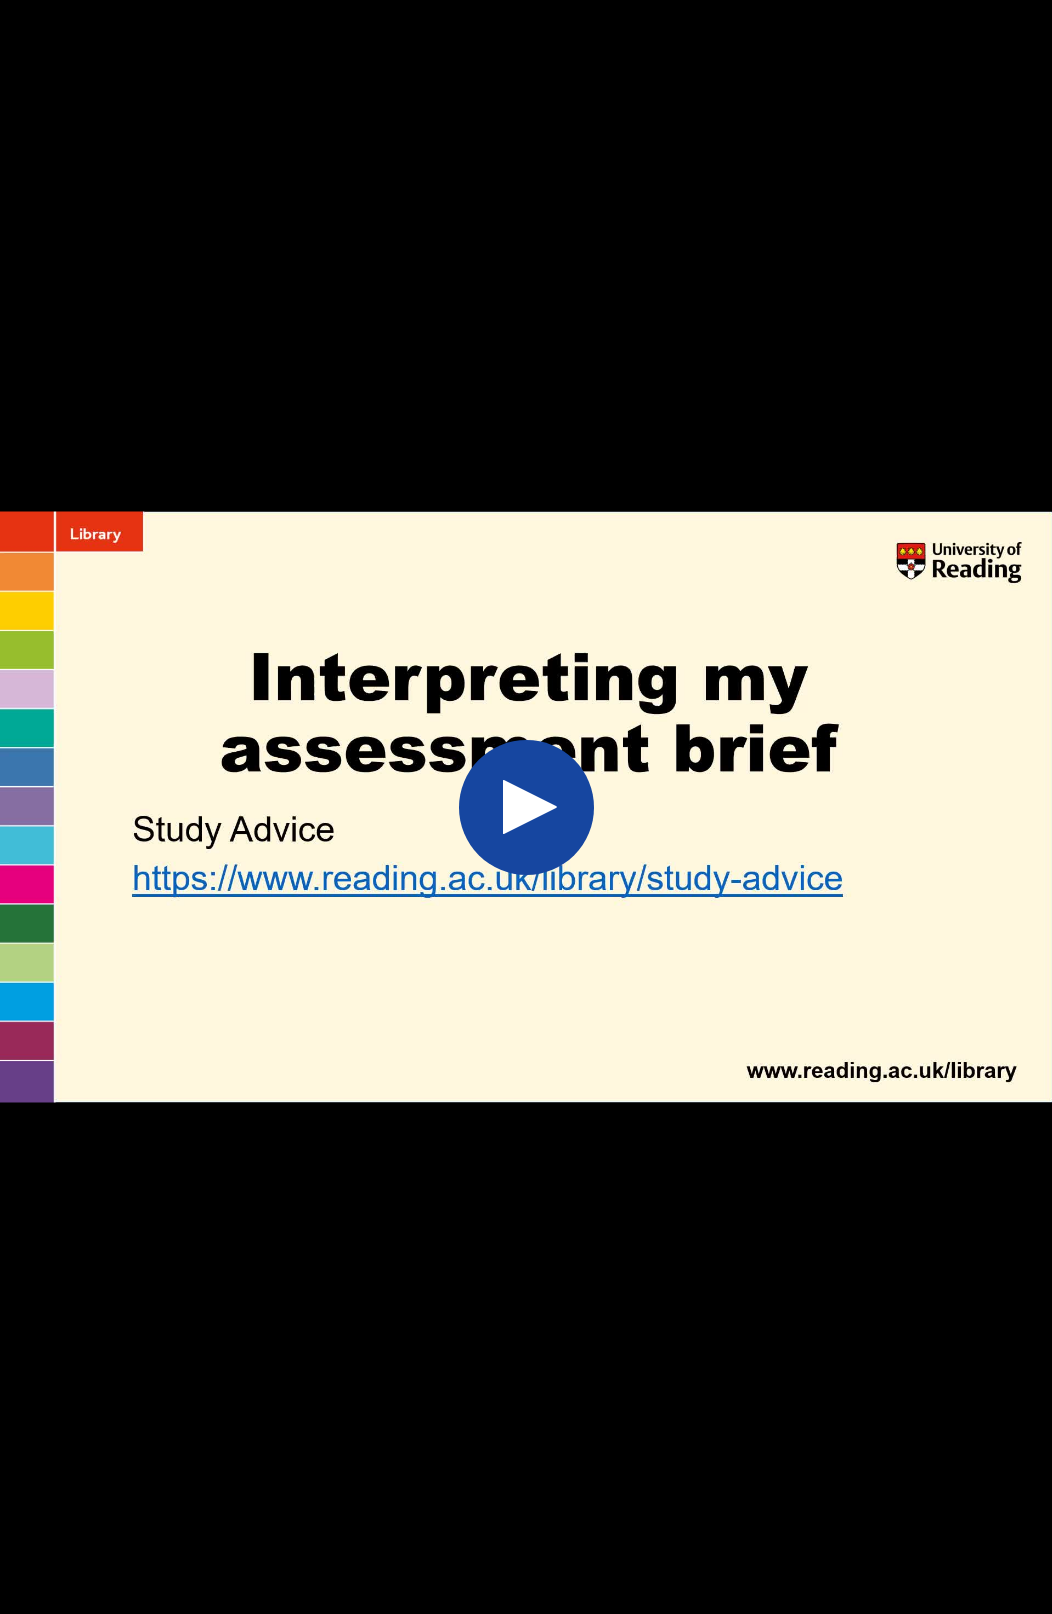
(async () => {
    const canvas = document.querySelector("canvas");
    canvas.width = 1052;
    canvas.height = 1614;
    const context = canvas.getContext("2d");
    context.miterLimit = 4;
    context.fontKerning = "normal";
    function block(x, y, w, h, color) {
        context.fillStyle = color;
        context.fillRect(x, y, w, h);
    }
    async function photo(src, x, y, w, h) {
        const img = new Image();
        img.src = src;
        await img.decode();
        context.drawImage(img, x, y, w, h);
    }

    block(0, 0, 1052, 1614, "rgb(0, 0, 0)");
    await photo("media/1.png", 0, 511, 1052, 592);
    context.fillStyle = "rgb(22, 70, 160)";
    context.beginPath();
    context.arc(526.5, 807.5, 67.5, 0, Math.PI * 2);
    context.fill();
    context.fillStyle = "rgb(255, 255, 255)";
    context.beginPath();
    context.moveTo(556, 806);
    context.lineTo(504, 780);
    context.bezierCurveTo(503, 780, 503, 780, 503, 781);
    context.lineTo(503, 833);
    context.bezierCurveTo(503, 834, 503, 834, 504, 834);
    context.lineTo(556, 808);
    context.bezierCurveTo(557, 808, 557, 806, 556, 806);
    context.closePath();
    context.fill();
})();
